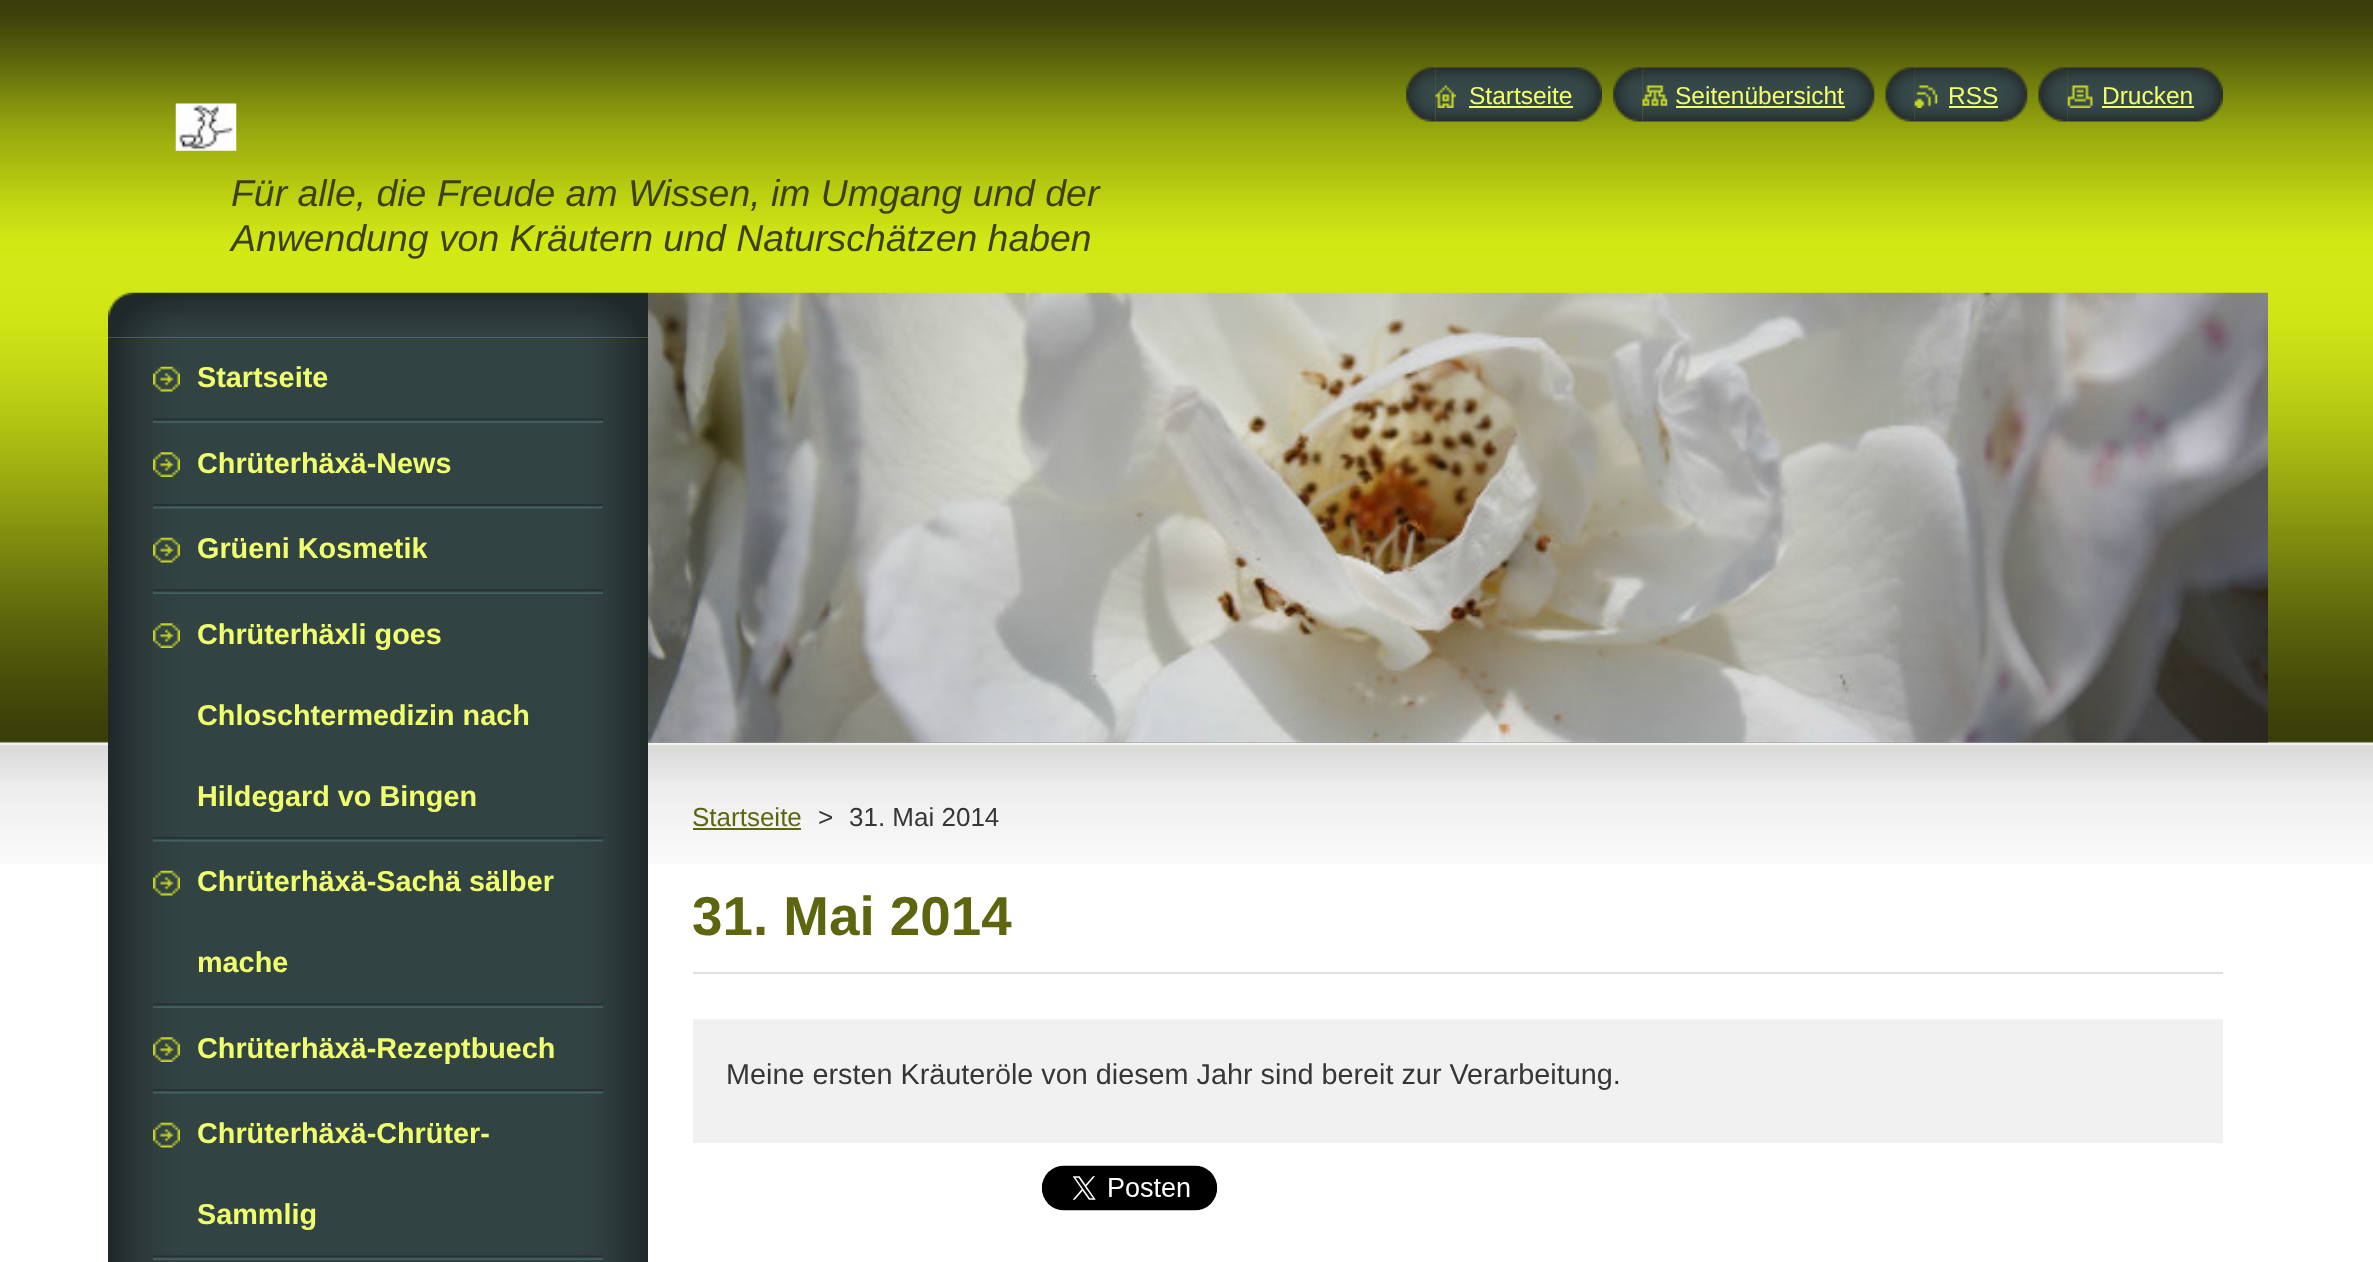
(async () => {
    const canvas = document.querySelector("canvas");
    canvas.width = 2373;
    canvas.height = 1262;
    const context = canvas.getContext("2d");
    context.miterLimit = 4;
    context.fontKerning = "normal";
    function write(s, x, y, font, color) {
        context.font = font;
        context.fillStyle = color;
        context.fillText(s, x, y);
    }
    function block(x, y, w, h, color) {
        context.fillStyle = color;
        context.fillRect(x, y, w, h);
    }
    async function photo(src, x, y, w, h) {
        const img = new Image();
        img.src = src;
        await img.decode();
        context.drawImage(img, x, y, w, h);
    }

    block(0, 0, 2373, 1262, "rgb(255, 255, 255)");
    await photo("media/1.png", 0, 0, 2373, 864);
    await photo("media/2.png", 1406, 67, 30, 55);
    await photo("media/3.png", 1435, 67, 167, 55);
    await photo("media/4.png", 1435, 85, 21, 23);
    write("Startseite", 1469, 104, "24.5px Liberation Sans", "rgb(240, 255, 109)");
    block(1469, 106, 104, 2, "rgb(240, 255, 109)");
    await photo("media/5.png", 1613, 67, 30, 55);
    await photo("media/6.png", 1642, 67, 233, 55);
    await photo("media/7.png", 1642, 85, 26, 21);
    write("Seitenübersicht", 1675, 104, "24.5px Liberation Sans", "rgb(240, 255, 109)");
    block(1676, 106, 169, 2, "rgb(240, 255, 109)");
    await photo("media/8.png", 1885, 67, 30, 55);
    await photo("media/9.png", 1914, 67, 114, 55);
    await photo("media/10.png", 1914, 85, 24, 23);
    write("RSS", 1948, 104, "24.5px Liberation Sans", "rgb(240, 255, 109)");
    block(1949, 106, 49, 2, "rgb(240, 255, 109)");
    await photo("media/11.png", 2038, 67, 30, 55);
    await photo("media/12.png", 2067, 67, 156, 55);
    await photo("media/13.png", 2067, 85, 26, 23);
    write("Drucken", 2102, 104, "24.5px Liberation Sans", "rgb(240, 255, 109)");
    block(2102, 106, 92, 2, "rgb(240, 255, 109)");
    await photo("media/14.png", 175, 103, 62, 48);
    write("Für alle, die Freude am Wissen, im Umgang und der", 231, 206, "italic 37.4px Liberation Sans", "rgb(60, 65, 12)");
    write("Anwendung von Kräutern und Naturschätzen haben", 231, 251, "italic 37.4px Liberation Sans", "rgb(60, 65, 12)");
    await photo("media/15.png", 108, 292, 540, 46);
    await photo("media/16.png", 108, 337, 540, 925);
    await photo("media/17.png", 153, 418, 450, 5);
    await photo("media/18.png", 153, 366, 27, 26);
    write("Startseite", 197, 387, "bold 28.8px Liberation Sans", "rgb(240, 255, 109)");
    await photo("media/19.png", 153, 504, 450, 5);
    await photo("media/20.png", 153, 452, 27, 25);
    write("Chrüterhäxä-News", 197, 473, "bold 28.8px Liberation Sans", "rgb(240, 255, 109)");
    await photo("media/17.png", 153, 589, 450, 5);
    await photo("media/18.png", 153, 537, 27, 26);
    write("Grüeni Kosmetik", 197, 558, "bold 28.8px Liberation Sans", "rgb(240, 255, 109)");
    await photo("media/19.png", 153, 837, 450, 5);
    await photo("media/20.png", 153, 623, 27, 25);
    write("Chrüterhäxli goes", 197, 644, "bold 28.8px Liberation Sans", "rgb(240, 255, 109)");
    write("Chloschtermedizin nach", 197, 725, "bold 28.8px Liberation Sans", "rgb(240, 255, 109)");
    write("Hildegard vo Bingen", 197, 806, "bold 28.8px Liberation Sans", "rgb(240, 255, 109)");
    await photo("media/17.png", 153, 1003, 450, 5);
    await photo("media/18.png", 153, 870, 27, 26);
    write("Chrüterhäxä-Sachä sälber", 197, 891, "bold 28.8px Liberation Sans", "rgb(240, 255, 109)");
    write("mache", 197, 972, "bold 28.8px Liberation Sans", "rgb(240, 255, 109)");
    await photo("media/19.png", 153, 1089, 450, 5);
    await photo("media/20.png", 153, 1037, 27, 25);
    write("Chrüterhäxä-Rezeptbuech", 197, 1058, "bold 28.8px Liberation Sans", "rgb(240, 255, 109)");
    await photo("media/17.png", 153, 1255, 450, 5);
    await photo("media/18.png", 153, 1122, 27, 26);
    write("Chrüterhäxä-Chrüter-", 197, 1143, "bold 28.8px Liberation Sans", "rgb(240, 255, 109)");
    write("Sammlig", 197, 1224, "bold 28.8px Liberation Sans", "rgb(240, 255, 109)");
    await photo("media/21.png", 648, 292, 1620, 451);
    write("Startseite", 692, 826, "26px Liberation Sans", "rgb(93, 101, 14)");
    block(693, 828, 108, 2, "rgb(93, 101, 14)");
    write(">", 818, 826, "26px Liberation Sans", "rgb(54, 54, 54)");
    write("31. Mai 2014", 849, 826, "26px Liberation Sans", "rgb(54, 54, 54)");
    block(693, 972, 1530, 2, "rgb(225, 225, 225)");
    write("31. Mai 2014", 692, 935, "bold 54.75px Liberation Sans", "rgb(93, 101, 14)");
    block(693, 1019, 1530, 124, "rgb(241, 241, 241)");
    write("Meine ersten Kräuteröle von diesem Jahr sind bereit zur Verarbeitung.", 726, 1084, "28.8px Liberation Sans", "rgb(54, 54, 54)");
    await photo("media/22.png", 1041, 1165, 177, 46);
})();
